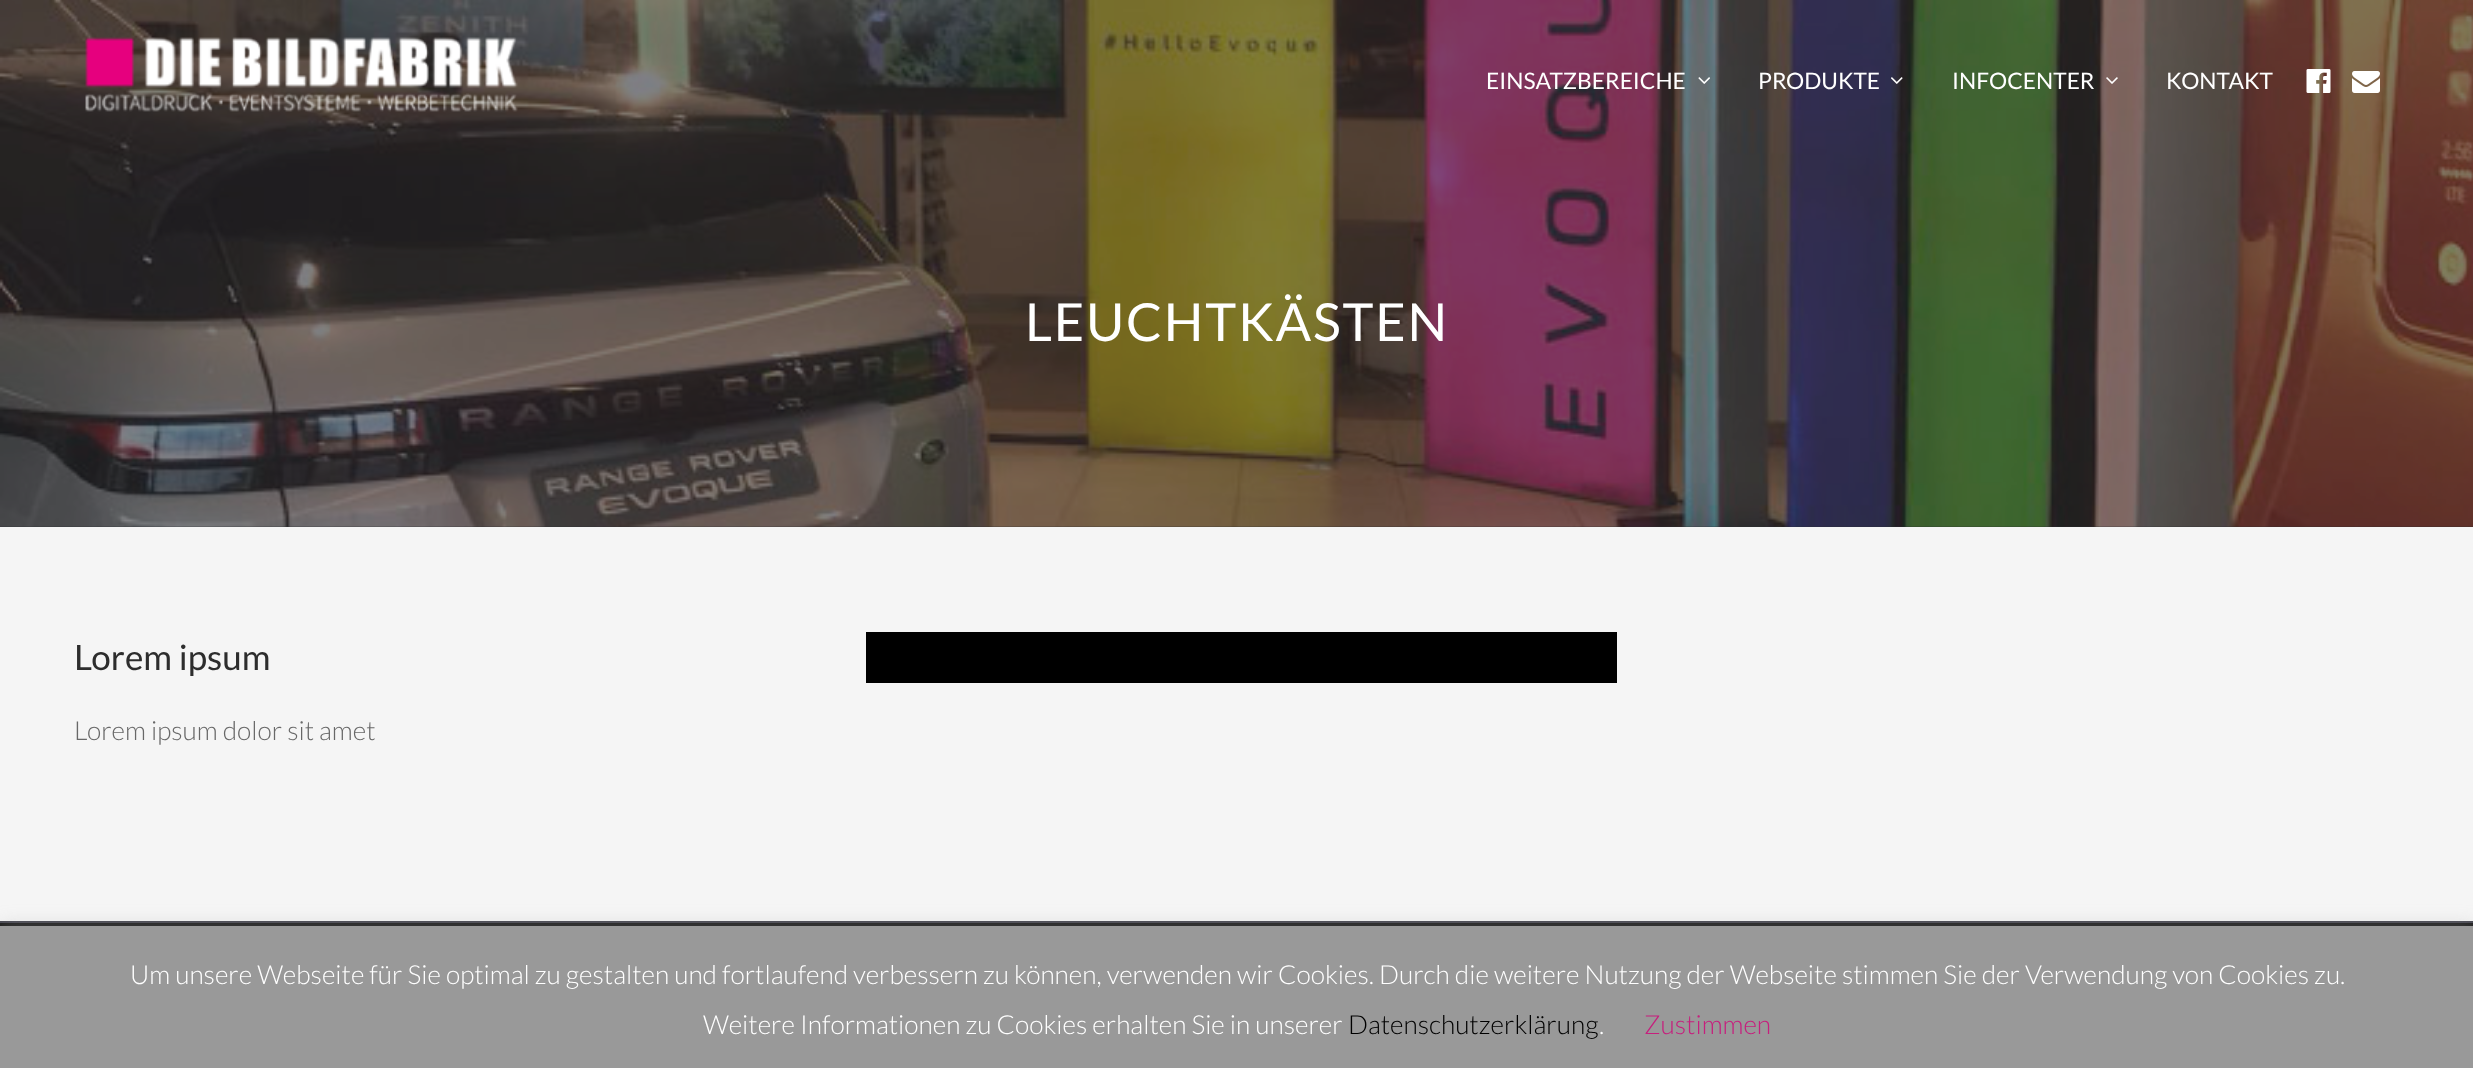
(async () => {
    const canvas = document.querySelector("canvas");
    canvas.width = 2473;
    canvas.height = 1068;
    const context = canvas.getContext("2d");
    context.miterLimit = 4;
    context.fontKerning = "normal";
    function write(s, x, y, font, color) {
        context.font = font;
        context.fillStyle = color;
        context.fillText(s, x, y);
    }
    function block(x, y, w, h, color) {
        context.fillStyle = color;
        context.fillRect(x, y, w, h);
    }
    async function photo(src, x, y, w, h) {
        const img = new Image();
        img.src = src;
        await img.decode();
        context.drawImage(img, x, y, w, h);
    }

    block(0, 0, 2473, 1068, "rgb(245, 245, 245)");
    block(0, 0, 2473, 527, "rgb(42, 43, 50)");
    await photo("media/7.png", 0, 0, 2473, 527);
    await photo("media/1.png", 85, 37, 433, 75);
    write("EINSATZBEREICHE", 1486, 89, "22.75px Lato", "rgb(255, 255, 255)");
    await photo("media/2.png", 1698, 77, 12, 7);
    write("PRODUKTE", 1758, 89, "22.75px Lato", "rgb(255, 255, 255)");
    await photo("media/3.png", 1891, 77, 12, 7);
    write("INFOCENTER", 1952, 89, "22.75px Lato", "rgb(255, 255, 255)");
    await photo("media/4.png", 2106, 77, 12, 7);
    write("KONTAKT", 2166, 89, "22.75px Lato", "rgb(255, 255, 255)");
    await photo("media/5.png", 2306, 69, 25, 24);
    await photo("media/6.png", 2352, 71, 28, 22);
    context.letterSpacing = "1.75px";
    write("LEUCHTKÄSTEN", 1025, 341, "52.5px Lato", "rgb(255, 255, 255)");
    context.letterSpacing = "0px";
    write("Lorem ipsum", 74, 670, "35px Lato", "rgb(45, 45, 45)");
    write("Lorem ipsum dolor sit amet", 74, 740, "300 26.25px Lato", "rgb(104, 104, 104)");
    block(866, 632, 751, 51, "rgb(0, 0, 0)");
    block(0, 923, 2473, 3, "rgb(25, 25, 25)");
    block(0, 921, 2473, 2, "rgb(69, 69, 79)");
    context.fillStyle = "rgba(172, 171, 171, 0.3)";
    context.filter = "blur(9px)";
    context.beginPath();
    context.rect(0, 924, 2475, 144);
    context.fill();
    context.filter = "none";
    block(0, 926, 2473, 142, "rgb(153, 153, 153)");
    write("Um unsere Webseite für Sie optimal zu gestalten und fortlaufend verbessern zu können, verwenden wir Cookies. Durch die weitere Nutzung der Webseite stimmen Sie der Verwendung von Cookies zu.", 130, 984, "300 26.25px Lato", "rgb(255, 255, 255)");
    write("Weitere Informationen zu Cookies erhalten Sie in unserer", 703, 1034, "300 26.25px Lato", "rgb(255, 255, 255)");
    write("Datenschutzerklärung", 1348, 1034, "300 26.25px Lato", "rgb(0, 0, 0)");
    write(".", 1599, 1034, "300 26.25px Lato", "rgb(255, 255, 255)");
    write("Zustimmen", 1644, 1034, "300 26.25px Lato", "rgb(199, 30, 125)");
})();
